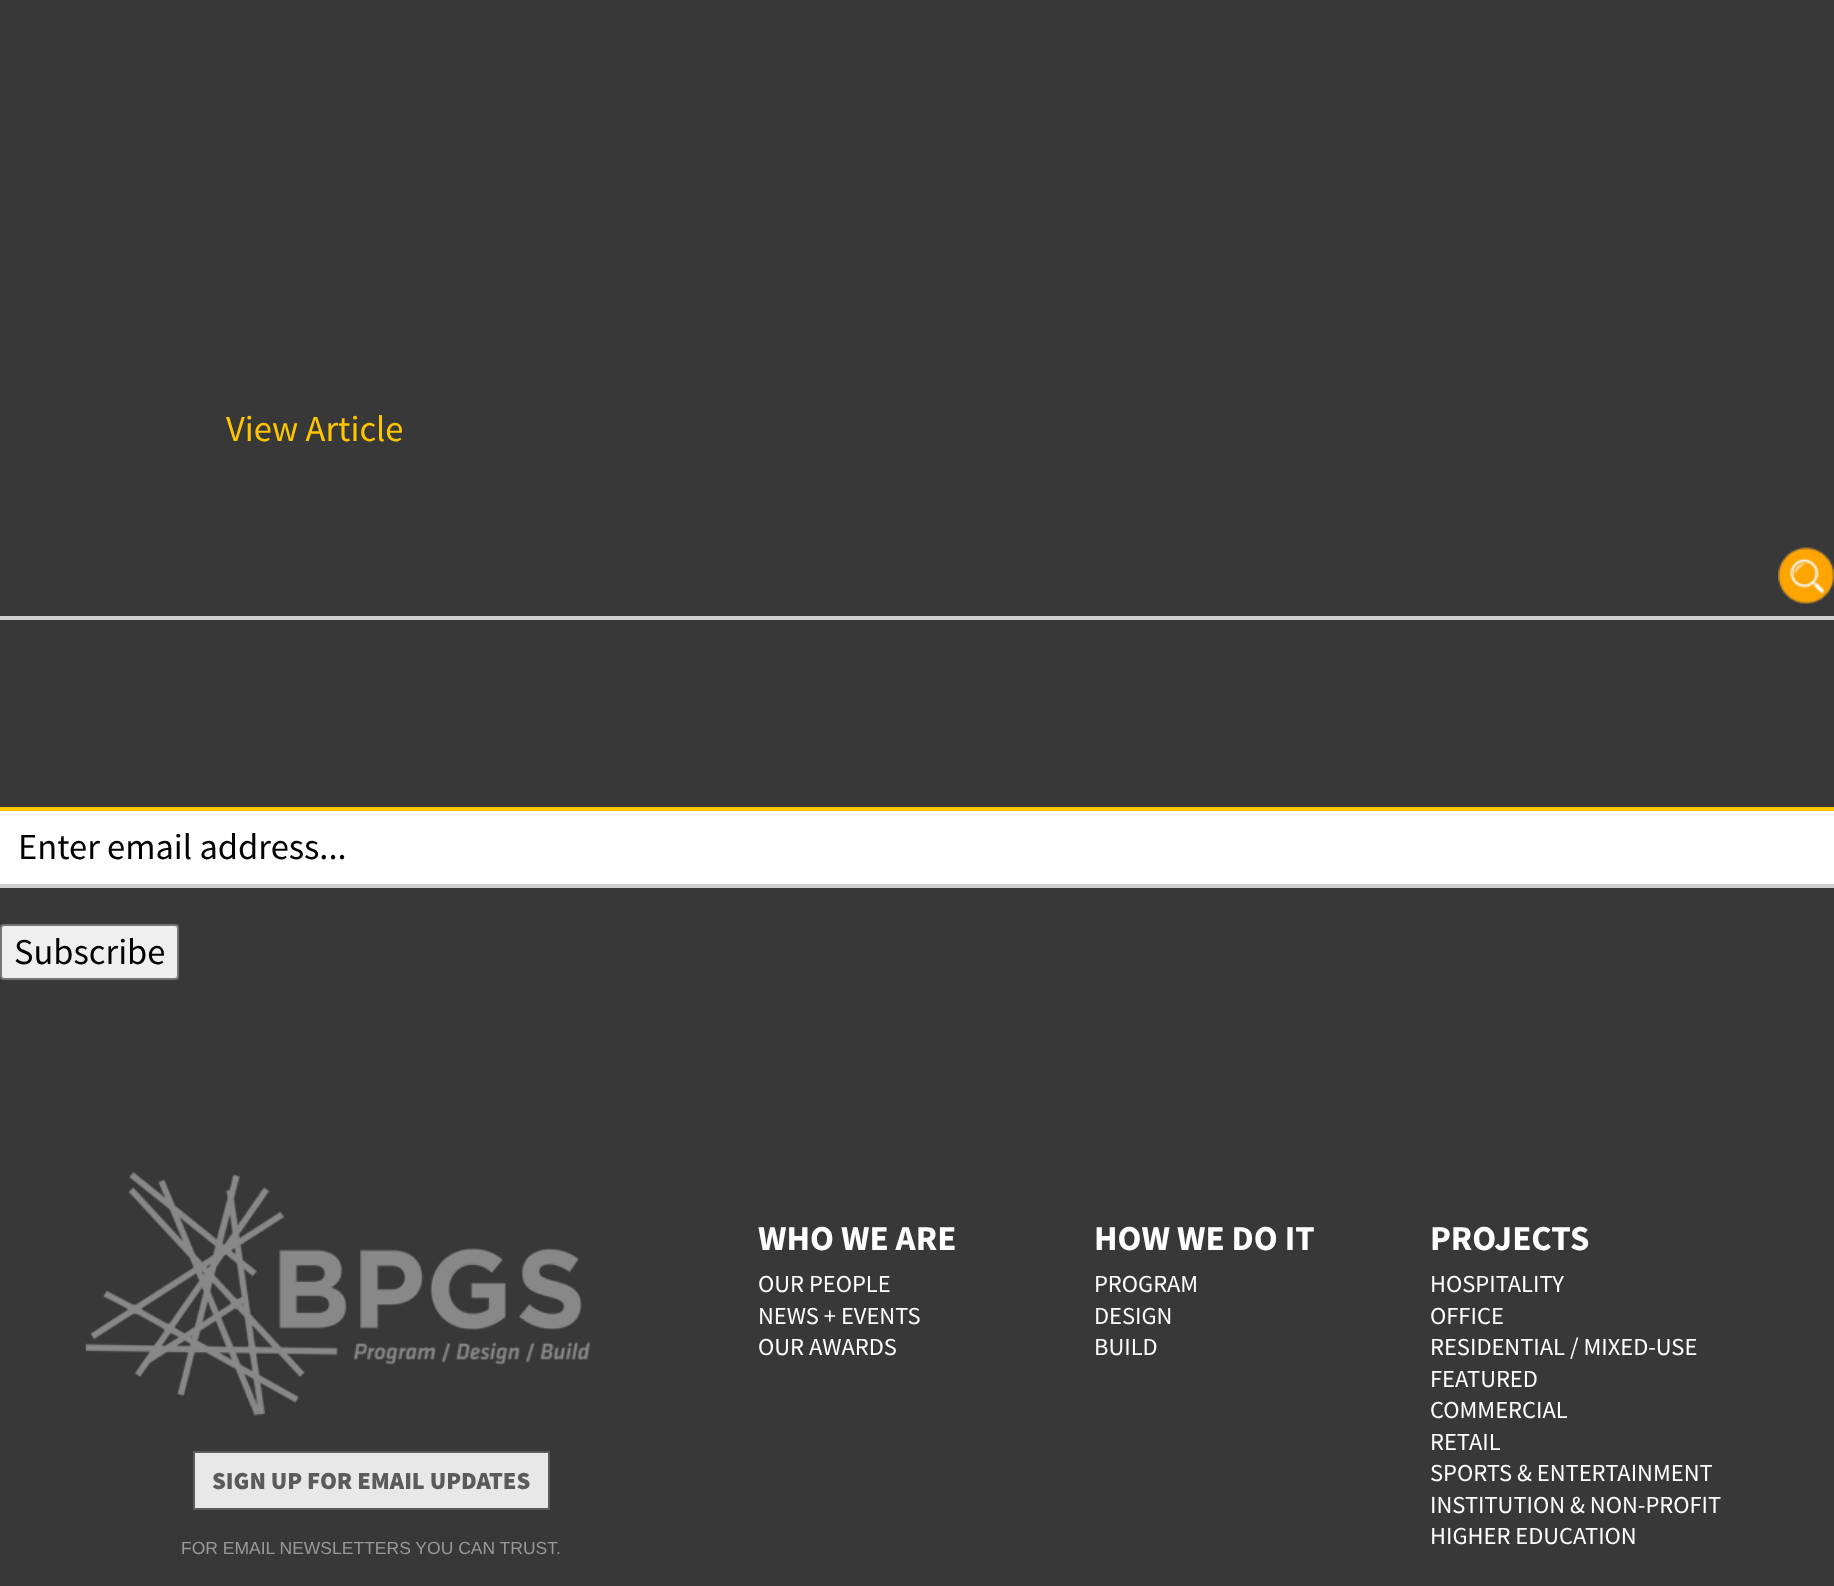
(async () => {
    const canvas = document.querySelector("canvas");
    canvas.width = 1834;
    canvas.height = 1586;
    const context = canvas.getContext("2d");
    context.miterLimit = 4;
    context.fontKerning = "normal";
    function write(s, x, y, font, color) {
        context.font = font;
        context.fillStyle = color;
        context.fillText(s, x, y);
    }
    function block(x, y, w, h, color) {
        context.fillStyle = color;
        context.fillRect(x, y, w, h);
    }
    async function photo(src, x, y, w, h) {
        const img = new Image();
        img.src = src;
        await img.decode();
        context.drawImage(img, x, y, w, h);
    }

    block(0, 0, 1834, 1586, "rgb(56, 56, 56)");
    write("View Article", 226, 441, "36.5px Source Sans Pro", "rgb(255, 198, 0)");
    await photo("media/1.png", 1778, 547, 56, 57);
    block(0, 616, 1834, 4, "rgb(206, 206, 206)");
    block(0, 811, 1834, 73, "rgb(255, 255, 255)");
    block(0, 807, 1834, 4, "rgb(255, 198, 0)");
    block(0, 884, 1834, 4, "rgb(206, 206, 206)");
    write("Enter email address...", 18, 859, "36.5px Source Sans Pro", "rgb(0, 0, 0)");
    context.fillStyle = "rgb(239, 239, 239)";
    context.beginPath();
    context.roundRect(1, 925, 177, 54, 3);
    context.fill();
    context.strokeStyle = "rgb(118, 118, 118)";
    context.lineWidth = 2;
    context.stroke();
    write("Subscribe", 14, 964, "36.5px Source Sans Pro", "rgb(0, 0, 0)");
    await photo("media/2.png", 85, 1172, 505, 244);
    context.fillStyle = "rgb(232, 232, 232)";
    context.beginPath();
    context.rect(194, 1452, 355, 57);
    context.fill();
    context.strokeStyle = "rgb(91, 91, 91)";
    context.stroke();
    write("SIGN UP FOR EMAIL UPDATES", 212, 1489, "900 24.5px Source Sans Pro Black", "rgb(91, 91, 91)");
    write("FOR EMAIL NEWSLETTERS YOU CAN TRUST.", 181, 1554, "17.5px Liberation Sans", "rgb(153, 153, 153)");
    write("WHO WE ARE", 758, 1250, "bold 35px Source Sans Pro", "rgb(255, 255, 255)");
    write("OUR PEOPLE", 758, 1292, "24.5px Source Sans Pro", "rgb(255, 255, 255)");
    write("NEWS + EVENTS", 758, 1324, "24.5px Source Sans Pro", "rgb(255, 255, 255)");
    write("OUR AWARDS", 758, 1355, "24.5px Source Sans Pro", "rgb(255, 255, 255)");
    write("HOW WE DO IT", 1094, 1250, "bold 35px Source Sans Pro", "rgb(255, 255, 255)");
    write("PROGRAM", 1094, 1292, "24.5px Source Sans Pro", "rgb(255, 255, 255)");
    write("DESIGN", 1094, 1324, "24.5px Source Sans Pro", "rgb(255, 255, 255)");
    write("BUILD", 1094, 1355, "24.5px Source Sans Pro", "rgb(255, 255, 255)");
    write("PROJECTS", 1430, 1250, "bold 35px Source Sans Pro", "rgb(255, 255, 255)");
    write("HOSPITALITY", 1430, 1292, "24.5px Source Sans Pro", "rgb(255, 255, 255)");
    write("OFFICE", 1430, 1324, "24.5px Source Sans Pro", "rgb(255, 255, 255)");
    write("RESIDENTIAL / MIXED-USE", 1430, 1355, "24.5px Source Sans Pro", "rgb(255, 255, 255)");
    write("FEATURED", 1430, 1387, "24.5px Source Sans Pro", "rgb(255, 255, 255)");
    write("COMMERCIAL", 1430, 1418, "24.5px Source Sans Pro", "rgb(255, 255, 255)");
    write("RETAIL", 1430, 1450, "24.5px Source Sans Pro", "rgb(255, 255, 255)");
    write("SPORTS & ENTERTAINMENT", 1430, 1481, "24.5px Source Sans Pro", "rgb(255, 255, 255)");
    write("INSTITUTION & NON-PROFIT", 1430, 1513, "24.5px Source Sans Pro", "rgb(255, 255, 255)");
    write("HIGHER EDUCATION", 1430, 1544, "24.5px Source Sans Pro", "rgb(255, 255, 255)");
})();
